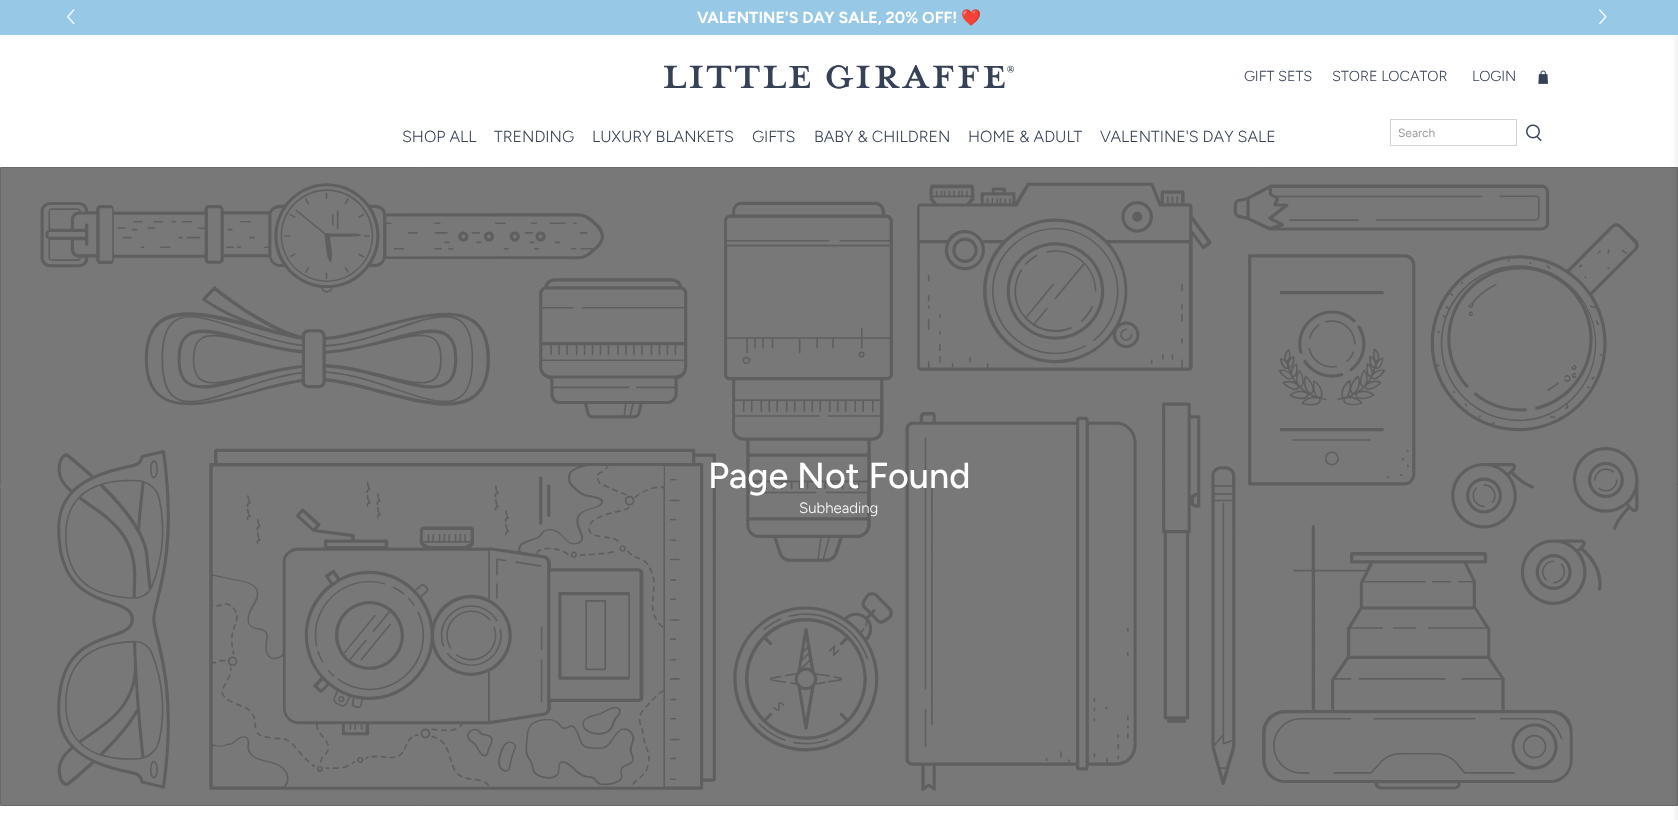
(async () => {
    const canvas = document.querySelector("canvas");
    canvas.width = 1678;
    canvas.height = 820;
    const context = canvas.getContext("2d");
    context.miterLimit = 4;
    context.fontKerning = "normal";
    function write(s, x, y, font, color) {
        context.font = font;
        context.fillStyle = color;
        context.fillText(s, x, y);
    }
    function block(x, y, w, h, color) {
        context.fillStyle = color;
        context.fillRect(x, y, w, h);
    }
    async function photo(src, x, y, w, h) {
        const img = new Image();
        img.src = src;
        await img.decode();
        context.drawImage(img, x, y, w, h);
    }

    block(0, 0, 1678, 820, "rgb(255, 255, 255)");
    context.fillStyle = "rgb(120, 120, 120)";
    context.beginPath();
    context.rect(0.5, 167.5, 1677, 638);
    context.fill();
    context.strokeStyle = "rgb(106, 106, 106)";
    context.stroke();
    context.fillStyle = "rgba(10, 10, 10, 0.1)";
    context.filter = "blur(4px)";
    context.beginPath();
    context.rect(1678, 8, 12, 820);
    context.fill();
    context.filter = "none";
    block(0, 0, 1678, 35, "rgb(151, 201, 230)");
    await photo("media/1.png", 67, 9, 8, 16);
    write("VALENTINE'S DAY SALE, 20% OFF!", 697, 23, "bold 16px Figtree", "rgb(255, 255, 255)");
    write("❤️", 961, 23, "16px Noto Color Emoji", "rgb(255, 255, 255)");
    await photo("media/2.png", 1599, 9, 8, 16);
    await photo("media/3.png", 664, 65, 350, 24);
    write("GIFT SETS", 1244, 81, "300 14.5px Figtree", "rgb(54, 65, 86)");
    write("STORE LOCATOR", 1332, 81, "300 14.5px Figtree", "rgb(54, 65, 86)");
    write("LOGIN", 1472, 81, "300 14.5px Figtree", "rgb(54, 65, 86)");
    await photo("media/4.png", 1538, 70, 10, 14);
    write("SHOP ALL", 402, 142, "300 16px Figtree", "rgb(54, 65, 86)");
    write("TRENDING", 494, 142, "300 16px Figtree", "rgb(54, 65, 86)");
    write("LUXURY BLANKETS", 592, 142, "300 16px Figtree", "rgb(54, 65, 86)");
    write("GIFTS", 752, 142, "300 16px Figtree", "rgb(54, 65, 86)");
    write("BABY & CHILDREN", 814, 142, "300 16px Figtree", "rgb(54, 65, 86)");
    write("HOME & ADULT", 968, 142, "300 16px Figtree", "rgb(54, 65, 86)");
    write("VALENTINE'S DAY SALE", 1100, 142, "300 16px Figtree", "rgb(54, 65, 86)");
    context.strokeStyle = "rgb(211, 211, 211)";
    context.strokeRect(1390.5, 119.5, 126, 26);
    write("Search", 1398, 137, "12px Figtree", "rgb(155, 155, 155)");
    await photo("media/5.png", 1526, 124, 16, 18);
    await photo("media/6.png", 40, 182, 1599, 609);
    write("Page Not Found", 708, 488, "500 36px Figtree", "rgb(255, 255, 255)");
    write("Subheading", 799, 513, "300 15px Figtree", "rgb(255, 255, 255)");
})();
